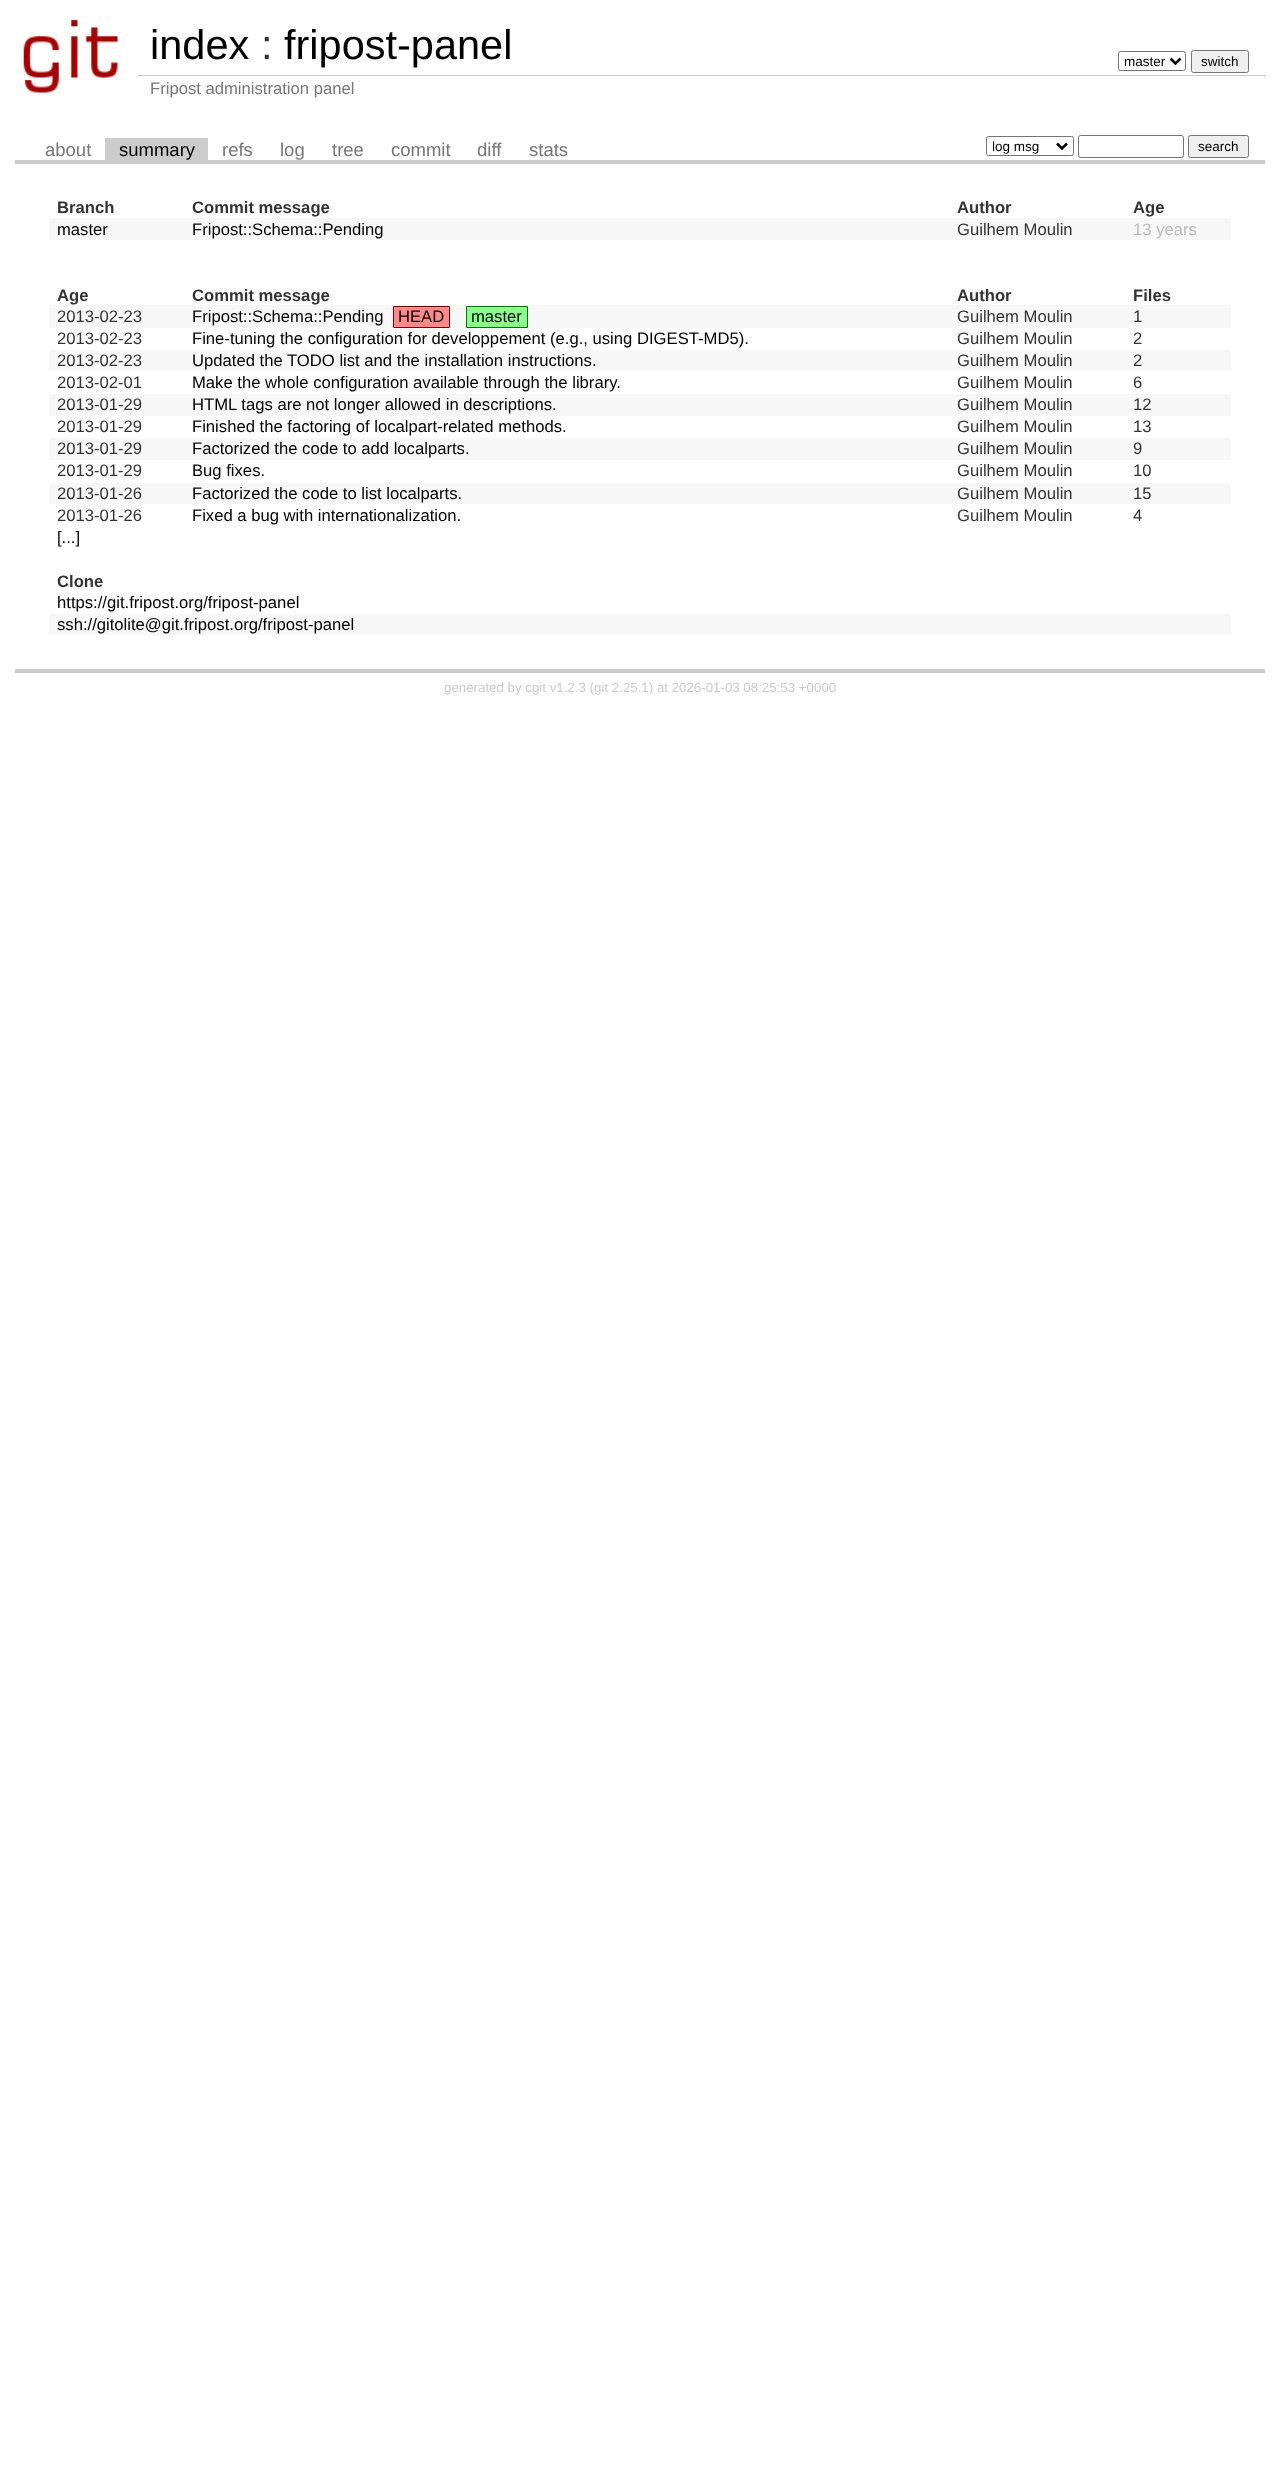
(async () => {
    const canvas = document.querySelector("canvas");
    canvas.width = 1280;
    canvas.height = 2468;
    const context = canvas.getContext("2d");
    context.miterLimit = 4;
    context.fontKerning = "normal";
    function write(s, x, y, font, color) {
        context.font = font;
        context.fillStyle = color;
        context.fillText(s, x, y);
    }
    function block(x, y, w, h, color) {
        context.fillStyle = color;
        context.fillRect(x, y, w, h);
    }
    async function photo(src, x, y, w, h) {
        const img = new Image();
        img.src = src;
        await img.decode();
        context.drawImage(img, x, y, w, h);
    }

    block(0, 0, 1280, 2468, "rgb(255, 255, 255)");
    await photo("media/1.png", 23, 19, 95, 74);
    write("index", 150, 59, "41.5px Liberation Sans", "rgb(0, 0, 0)");
    write(":", 261, 59, "41.5px Liberation Sans", "rgb(51, 51, 51)");
    write("fripost-panel", 284, 59, "41.5px Liberation Sans", "rgb(0, 0, 0)");
    context.beginPath();
    context.roundRect(1118.5, 51.5, 67, 19, 2);
    context.strokeStyle = "rgb(118, 118, 118)";
    context.stroke();
    context.beginPath();
    context.moveTo(1170.5, 58.5);
    context.lineTo(1175.5, 63.5);
    context.lineTo(1180.5, 58.5);
    context.strokeStyle = "rgb(0, 0, 0)";
    context.lineWidth = 2.5;
    context.stroke();
    write("master", 1124, 66, "13.5px Liberation Sans", "rgb(0, 0, 0)");
    context.fillStyle = "rgb(239, 239, 239)";
    context.beginPath();
    context.roundRect(1191.5, 50.5, 57, 22, 2);
    context.fill();
    context.strokeStyle = "rgb(118, 118, 118)";
    context.lineWidth = 1;
    context.stroke();
    write("switch", 1201, 66, "13.5px Liberation Sans", "rgb(0, 0, 0)");
    block(138, 75, 1128, 1, "rgb(204, 204, 204)");
    write("Fripost administration panel", 150, 94, "16.65px Liberation Sans", "rgb(119, 119, 119)");
    block(15, 160, 1250, 4, "rgb(204, 204, 204)");
    write("about", 45, 156, "18.5px Liberation Sans", "rgb(119, 119, 119)");
    block(105, 138, 103, 22, "rgb(204, 204, 204)");
    write("summary", 119, 156, "18.5px Liberation Sans", "rgb(0, 0, 0)");
    write("refs", 222, 156, "18.5px Liberation Sans", "rgb(119, 119, 119)");
    write("log", 280, 156, "18.5px Liberation Sans", "rgb(119, 119, 119)");
    write("tree", 332, 156, "18.5px Liberation Sans", "rgb(119, 119, 119)");
    write("commit", 391, 156, "18.5px Liberation Sans", "rgb(119, 119, 119)");
    write("diff", 477, 156, "18.5px Liberation Sans", "rgb(119, 119, 119)");
    write("stats", 529, 156, "18.5px Liberation Sans", "rgb(119, 119, 119)");
    context.beginPath();
    context.roundRect(986.5, 136.5, 87, 19, 2);
    context.stroke();
    context.beginPath();
    context.moveTo(1057, 143.5);
    context.lineTo(1062, 148.5);
    context.lineTo(1067, 143.5);
    context.strokeStyle = "rgb(0, 0, 0)";
    context.lineWidth = 2.5;
    context.stroke();
    context.save();
    context.beginPath();
    context.rect(993, 138, 60, 17);
    context.clip();
    write("log msg", 992, 151, "13.5px Liberation Sans", "rgb(0, 0, 0)");
    context.restore();
    context.beginPath();
    context.roundRect(1078.5, 135.5, 105, 22, 2);
    context.strokeStyle = "rgb(118, 118, 118)";
    context.lineWidth = 1;
    context.stroke();
    context.fillStyle = "rgb(239, 239, 239)";
    context.beginPath();
    context.roundRect(1188.5, 135.5, 60, 22, 2);
    context.fill();
    context.stroke();
    write("search", 1198, 151, "13.5px Liberation Sans", "rgb(0, 0, 0)");
    block(15, 669, 1250, 4, "rgb(204, 204, 204)");
    write("Branch", 57, 213, "bold 16.65px Liberation Sans", "rgb(51, 51, 51)");
    write("Commit message", 192, 213, "bold 16.65px Liberation Sans", "rgb(51, 51, 51)");
    write("Author", 957, 213, "bold 16.65px Liberation Sans", "rgb(51, 51, 51)");
    write("Age", 1133, 213, "bold 16.65px Liberation Sans", "rgb(51, 51, 51)");
    block(49, 218, 1182, 22, "rgb(247, 247, 247)");
    write("master", 57, 235, "16.65px Liberation Sans", "rgb(0, 0, 0)");
    write("Fripost::Schema::Pending", 192, 235, "16.65px Liberation Sans", "rgb(0, 0, 0)");
    write("Guilhem Moulin", 957, 235, "16.65px Liberation Sans", "rgb(51, 51, 51)");
    write("13 years", 1133, 235, "16.65px Liberation Sans", "rgb(187, 187, 187)");
    write("Age", 57, 301, "bold 16.65px Liberation Sans", "rgb(51, 51, 51)");
    write("Commit message", 192, 301, "bold 16.65px Liberation Sans", "rgb(51, 51, 51)");
    write("Author", 957, 301, "bold 16.65px Liberation Sans", "rgb(51, 51, 51)");
    write("Files", 1133, 301, "bold 16.65px Liberation Sans", "rgb(51, 51, 51)");
    block(49, 305, 1182, 23, "rgb(247, 247, 247)");
    write("2013-02-23", 57, 322, "16.65px Liberation Sans", "rgb(51, 51, 51)");
    write("Fripost::Schema::Pending", 192, 322, "16.65px Liberation Sans", "rgb(0, 0, 0)");
    context.fillStyle = "rgb(255, 136, 136)";
    context.beginPath();
    context.rect(393.5, 306.5, 56, 21);
    context.fill();
    context.strokeStyle = "rgb(119, 0, 0)";
    context.stroke();
    write("HEAD", 398, 322, "16.65px Liberation Sans", "rgb(0, 0, 0)");
    context.fillStyle = "rgb(136, 255, 136)";
    context.beginPath();
    context.rect(466.5, 306.5, 61, 21);
    context.fill();
    context.strokeStyle = "rgb(0, 119, 0)";
    context.stroke();
    write("master", 471, 322, "16.65px Liberation Sans", "rgb(0, 0, 0)");
    write("Guilhem Moulin", 957, 322, "16.65px Liberation Sans", "rgb(51, 51, 51)");
    write("1", 1133, 322, "16.65px Liberation Sans", "rgb(51, 51, 51)");
    write("2013-02-23", 57, 344, "16.65px Liberation Sans", "rgb(51, 51, 51)");
    write("Fine-tuning the configuration for developpement (e.g., using DIGEST-MD5).", 192, 344, "16.65px Liberation Sans", "rgb(0, 0, 0)");
    write("Guilhem Moulin", 957, 344, "16.65px Liberation Sans", "rgb(51, 51, 51)");
    write("2", 1133, 344, "16.65px Liberation Sans", "rgb(51, 51, 51)");
    block(49, 350, 1182, 21, "rgb(247, 247, 247)");
    write("2013-02-23", 57, 366, "16.65px Liberation Sans", "rgb(51, 51, 51)");
    write("Updated the TODO list and the installation instructions.", 192, 366, "16.65px Liberation Sans", "rgb(0, 0, 0)");
    write("Guilhem Moulin", 957, 366, "16.65px Liberation Sans", "rgb(51, 51, 51)");
    write("2", 1133, 366, "16.65px Liberation Sans", "rgb(51, 51, 51)");
    write("2013-02-01", 57, 388, "16.65px Liberation Sans", "rgb(51, 51, 51)");
    write("Make the whole configuration available through the library.", 192, 388, "16.65px Liberation Sans", "rgb(0, 0, 0)");
    write("Guilhem Moulin", 957, 388, "16.65px Liberation Sans", "rgb(51, 51, 51)");
    write("6", 1133, 388, "16.65px Liberation Sans", "rgb(51, 51, 51)");
    block(49, 394, 1182, 22, "rgb(247, 247, 247)");
    write("2013-01-29", 57, 410, "16.65px Liberation Sans", "rgb(51, 51, 51)");
    write("HTML tags are not longer allowed in descriptions.", 192, 410, "16.65px Liberation Sans", "rgb(0, 0, 0)");
    write("Guilhem Moulin", 957, 410, "16.65px Liberation Sans", "rgb(51, 51, 51)");
    write("12", 1133, 410, "16.65px Liberation Sans", "rgb(51, 51, 51)");
    write("2013-01-29", 57, 432, "16.65px Liberation Sans", "rgb(51, 51, 51)");
    write("Finished the factoring of localpart-related methods.", 192, 432, "16.65px Liberation Sans", "rgb(0, 0, 0)");
    write("Guilhem Moulin", 957, 432, "16.65px Liberation Sans", "rgb(51, 51, 51)");
    write("13", 1133, 432, "16.65px Liberation Sans", "rgb(51, 51, 51)");
    block(49, 438, 1182, 22, "rgb(247, 247, 247)");
    write("2013-01-29", 57, 454, "16.65px Liberation Sans", "rgb(51, 51, 51)");
    write("Factorized the code to add localparts.", 192, 454, "16.65px Liberation Sans", "rgb(0, 0, 0)");
    write("Guilhem Moulin", 957, 454, "16.65px Liberation Sans", "rgb(51, 51, 51)");
    write("9", 1133, 454, "16.65px Liberation Sans", "rgb(51, 51, 51)");
    write("2013-01-29", 57, 476, "16.65px Liberation Sans", "rgb(51, 51, 51)");
    write("Bug fixes.", 192, 476, "16.65px Liberation Sans", "rgb(0, 0, 0)");
    write("Guilhem Moulin", 957, 476, "16.65px Liberation Sans", "rgb(51, 51, 51)");
    write("10", 1133, 476, "16.65px Liberation Sans", "rgb(51, 51, 51)");
    block(49, 483, 1182, 21, "rgb(247, 247, 247)");
    write("2013-01-26", 57, 499, "16.65px Liberation Sans", "rgb(51, 51, 51)");
    write("Factorized the code to list localparts.", 192, 499, "16.65px Liberation Sans", "rgb(0, 0, 0)");
    write("Guilhem Moulin", 957, 499, "16.65px Liberation Sans", "rgb(51, 51, 51)");
    write("15", 1133, 499, "16.65px Liberation Sans", "rgb(51, 51, 51)");
    write("2013-01-26", 57, 521, "16.65px Liberation Sans", "rgb(51, 51, 51)");
    write("Fixed a bug with internationalization.", 192, 521, "16.65px Liberation Sans", "rgb(0, 0, 0)");
    write("Guilhem Moulin", 957, 521, "16.65px Liberation Sans", "rgb(51, 51, 51)");
    write("4", 1133, 521, "16.65px Liberation Sans", "rgb(51, 51, 51)");
    write("[...]", 57, 543, "16.65px Liberation Sans", "rgb(0, 0, 0)");
    write("Clone", 57, 587, "bold 16.65px Liberation Sans", "rgb(51, 51, 51)");
    write("https://git.fripost.org/fripost-panel", 57, 608, "16.65px Liberation Sans", "rgb(0, 0, 0)");
    block(49, 614, 1182, 21, "rgb(247, 247, 247)");
    write("ssh://gitolite@git.fripost.org/fripost-panel", 57, 630, "16.65px Liberation Sans", "rgb(0, 0, 0)");
    write("generated by cgit v1.2.3 (git 2.25.1) at 2026-01-03 08:25:53 +0000", 444, 692, "13.3px Liberation Sans", "rgb(204, 204, 204)");
})();
